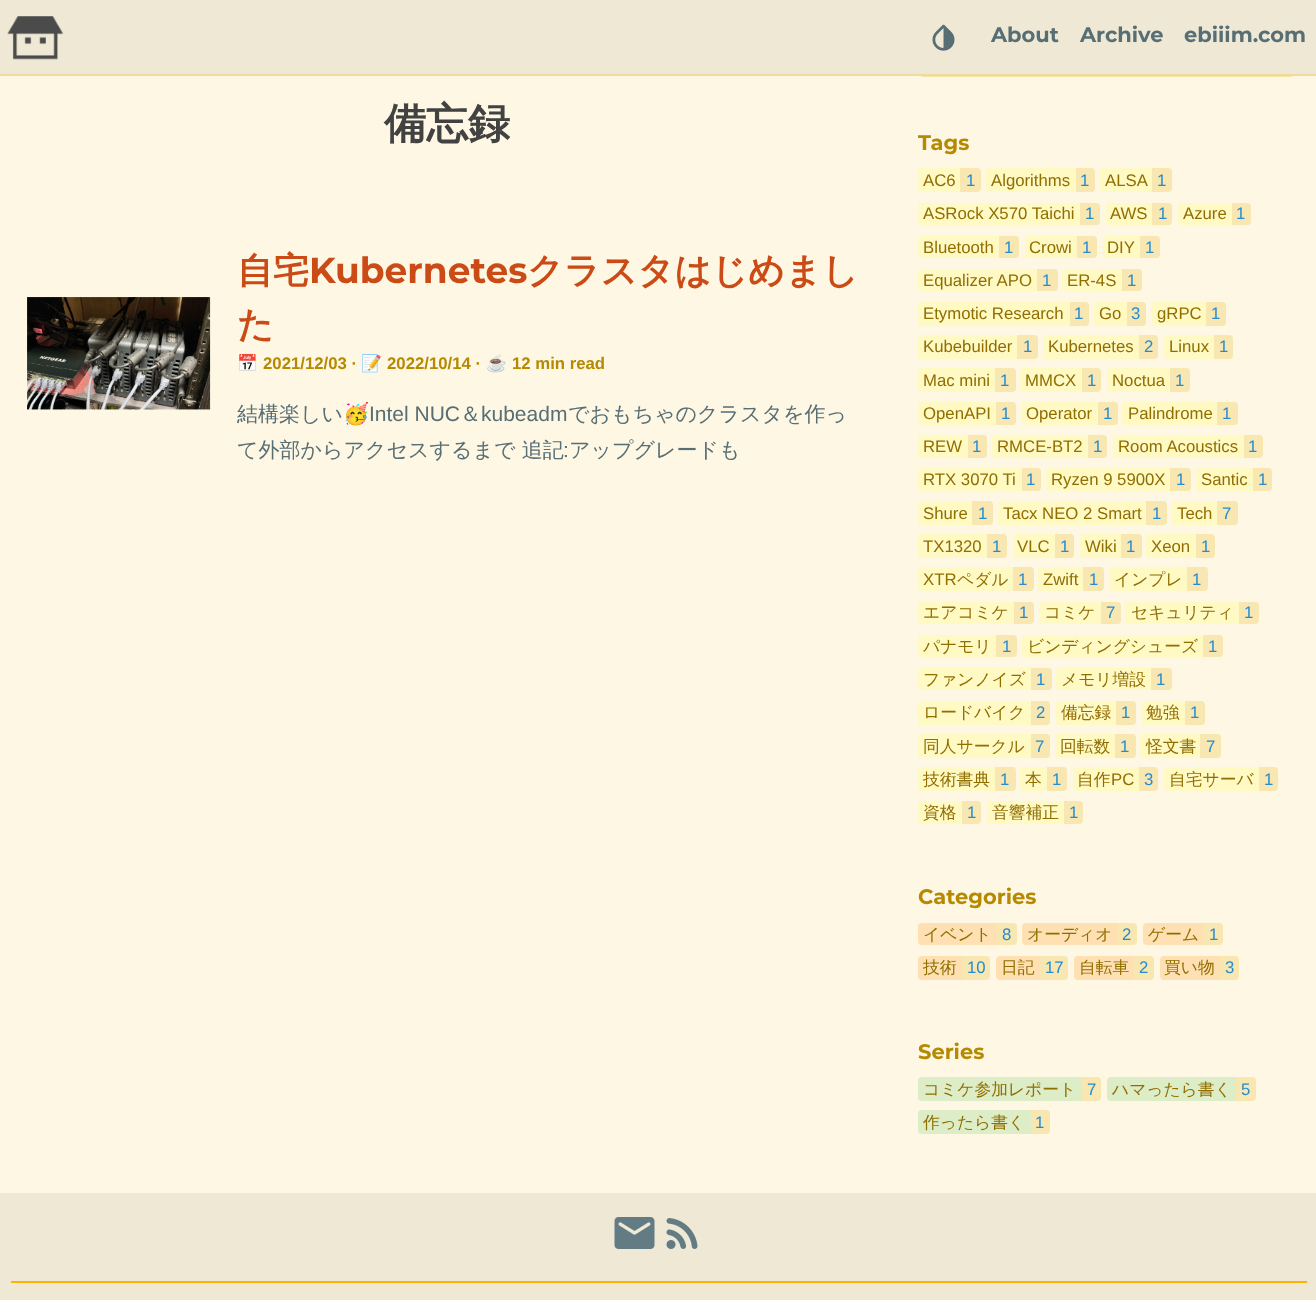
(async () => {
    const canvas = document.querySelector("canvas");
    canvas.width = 1316;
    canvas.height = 1300;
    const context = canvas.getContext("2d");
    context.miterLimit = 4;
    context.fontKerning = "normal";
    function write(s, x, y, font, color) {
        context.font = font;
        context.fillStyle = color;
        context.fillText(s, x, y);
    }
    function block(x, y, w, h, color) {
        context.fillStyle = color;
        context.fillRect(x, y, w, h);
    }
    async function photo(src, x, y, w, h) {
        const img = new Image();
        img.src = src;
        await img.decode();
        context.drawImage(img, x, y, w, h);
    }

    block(0, 0, 1316, 1300, "rgb(253, 247, 227)");
    context.beginPath();
    context.roundRect(919.5, 25.5, 375, 50, 4.5);
    context.strokeStyle = "rgb(247, 227, 162)";
    context.lineWidth = 3;
    context.stroke();
    block(0, 0, 1316, 74, "rgb(238, 232, 213)");
    block(0, 74, 1316, 2, "rgb(237, 220, 159)");
    await photo("media/1.png", 7, 16, 57, 44);
    await photo("media/2.png", 932, 24, 23, 27);
    write("About", 991, 42, "bold 21px Montserrat", "rgb(88, 110, 117)");
    write("Archive", 1080, 42, "bold 21px Montserrat", "rgb(88, 110, 117)");
    write("ebiiim.com", 1184, 42, "bold 21px Montserrat", "rgb(88, 110, 117)");
    write("備忘録", 384, 138, "bold 42px WenQuanYi Zen Hei", "rgb(66, 66, 66)");
    await photo("media/3.png", 27, 297, 184, 113);
    write("自宅", 237, 283, "bold 36px WenQuanYi Zen Hei", "rgb(203, 75, 22)");
    write("Kubernetes", 309, 283, "bold 36px Montserrat", "rgb(203, 75, 22)");
    write("クラスタはじめまし", 527, 283, "bold 36px WenQuanYi Zen Hei", "rgb(203, 75, 22)");
    write("た", 237, 337, "bold 36px WenQuanYi Zen Hei", "rgb(203, 75, 22)");
    write("📅", 237, 369, "bold 16.75px Noto Color Emoji", "rgb(181, 137, 0)");
    write("2021/12/03 ·", 263, 369, "bold 16.75px Liberation Sans", "rgb(181, 137, 0)");
    write("📝", 361, 369, "bold 16.75px Noto Color Emoji", "rgb(181, 137, 0)");
    write("2022/10/14 ·", 387, 369, "bold 16.75px Liberation Sans", "rgb(181, 137, 0)");
    write("☕", 486, 369, "bold 16.75px Noto Color Emoji", "rgb(181, 137, 0)");
    write("12 min read", 512, 369, "bold 16.75px Liberation Sans", "rgb(181, 137, 0)");
    write("結構楽しい", 237, 421, "500 21px WenQuanYi Zen Hei", "rgb(88, 110, 117)");
    write("🥳", 343, 421, "21px Noto Color Emoji", "rgb(88, 110, 117)");
    write("Intel NUC", 369, 421, "21px Liberation Sans", "rgb(88, 110, 117)");
    write("＆", 460, 421, "500 21px WenQuanYi Zen Hei", "rgb(88, 110, 117)");
    write("kubeadm", 481, 421, "21px Liberation Sans", "rgb(88, 110, 117)");
    write("でおもちゃのクラスタを作っ", 568, 421, "500 21px WenQuanYi Zen Hei", "rgb(88, 110, 117)");
    write("て外部からアクセスするまで 追記", 237, 457, "500 21px WenQuanYi Zen Hei", "rgb(88, 110, 117)");
    write(":", 563, 457, "21px Liberation Sans", "rgb(88, 110, 117)");
    write("アップグレードも", 569, 457, "500 21px WenQuanYi Zen Hei", "rgb(88, 110, 117)");
    write("Tags", 918, 150, "bold 21px Montserrat", "rgb(181, 137, 0)");
    context.fillStyle = "rgb(255, 249, 196)";
    context.beginPath();
    context.roundRect(918, 168, 42, 24, [4, 0, 0, 4]);
    context.fill();
    write("AC6", 923, 186, "16.75px Liberation Sans", "rgb(145, 110, 0)");
    context.fillStyle = "rgb(248, 231, 176)";
    context.beginPath();
    context.roundRect(960, 168, 21, 24, [0, 4, 4, 0]);
    context.fill();
    write("1", 966, 186, "16.75px Liberation Sans", "rgb(38, 139, 210)");
    context.fillStyle = "rgb(255, 249, 196)";
    context.beginPath();
    context.roundRect(986, 168, 90, 24, [4, 0, 0, 4]);
    context.fill();
    write("Algorithms", 991, 186, "16.75px Liberation Sans", "rgb(145, 110, 0)");
    context.fillStyle = "rgb(248, 231, 176)";
    context.beginPath();
    context.roundRect(1076, 168, 19, 24, [0, 4, 4, 0]);
    context.fill();
    write("1", 1080, 186, "16.75px Liberation Sans", "rgb(38, 139, 210)");
    context.fillStyle = "rgb(255, 249, 196)";
    context.beginPath();
    context.roundRect(1100, 168, 52, 24, [4, 0, 0, 4]);
    context.fill();
    write("ALSA", 1105, 186, "16.75px Liberation Sans", "rgb(145, 110, 0)");
    context.fillStyle = "rgb(248, 231, 176)";
    context.beginPath();
    context.roundRect(1152, 168, 20, 24, [0, 4, 4, 0]);
    context.fill();
    write("1", 1157, 186, "16.75px Liberation Sans", "rgb(38, 139, 210)");
    context.fillStyle = "rgb(255, 249, 196)";
    context.beginPath();
    context.roundRect(918, 203, 162, 22, [4, 0, 0, 4]);
    context.fill();
    write("ASRock X570 Taichi", 923, 219, "16.75px Liberation Sans", "rgb(145, 110, 0)");
    context.fillStyle = "rgb(248, 231, 176)";
    context.beginPath();
    context.roundRect(1080, 203, 20, 22, [0, 4, 4, 0]);
    context.fill();
    write("1", 1085, 219, "16.75px Liberation Sans", "rgb(38, 139, 210)");
    context.fillStyle = "rgb(255, 249, 196)";
    context.beginPath();
    context.roundRect(1106, 203, 46, 22, [4, 0, 0, 4]);
    context.fill();
    write("AWS", 1110, 219, "16.75px Liberation Sans", "rgb(145, 110, 0)");
    context.fillStyle = "rgb(248, 231, 176)";
    context.beginPath();
    context.roundRect(1152, 203, 20, 22, [0, 4, 4, 0]);
    context.fill();
    write("1", 1158, 219, "16.75px Liberation Sans", "rgb(38, 139, 210)");
    context.fillStyle = "rgb(255, 249, 196)";
    context.beginPath();
    context.roundRect(1178, 203, 54, 22, [4, 0, 0, 4]);
    context.fill();
    write("Azure", 1183, 219, "16.75px Liberation Sans", "rgb(145, 110, 0)");
    context.fillStyle = "rgb(248, 231, 176)";
    context.beginPath();
    context.roundRect(1232, 203, 19, 22, [0, 4, 4, 0]);
    context.fill();
    write("1", 1236, 219, "16.75px Liberation Sans", "rgb(38, 139, 210)");
    context.fillStyle = "rgb(255, 249, 196)";
    context.beginPath();
    context.roundRect(918, 236, 81, 22, [4, 0, 0, 4]);
    context.fill();
    write("Bluetooth", 923, 253, "16.75px Liberation Sans", "rgb(145, 110, 0)");
    context.fillStyle = "rgb(248, 231, 176)";
    context.beginPath();
    context.roundRect(999, 236, 20, 22, [0, 4, 4, 0]);
    context.fill();
    write("1", 1004, 253, "16.75px Liberation Sans", "rgb(38, 139, 210)");
    context.fillStyle = "rgb(255, 249, 196)";
    context.beginPath();
    context.roundRect(1025, 236, 52, 22, [4, 0, 0, 4]);
    context.fill();
    write("Crowi", 1029, 253, "16.75px Liberation Sans", "rgb(145, 110, 0)");
    context.fillStyle = "rgb(248, 231, 176)";
    context.beginPath();
    context.roundRect(1077, 236, 20, 22, [0, 4, 4, 0]);
    context.fill();
    write("1", 1082, 253, "16.75px Liberation Sans", "rgb(38, 139, 210)");
    context.fillStyle = "rgb(255, 249, 196)";
    context.beginPath();
    context.roundRect(1103, 236, 37, 22, [4, 0, 0, 4]);
    context.fill();
    write("DIY", 1107, 253, "16.75px Liberation Sans", "rgb(145, 110, 0)");
    context.fillStyle = "rgb(248, 231, 176)";
    context.beginPath();
    context.roundRect(1140, 236, 20, 22, [0, 4, 4, 0]);
    context.fill();
    write("1", 1145, 253, "16.75px Liberation Sans", "rgb(38, 139, 210)");
    context.fillStyle = "rgb(255, 249, 196)";
    context.beginPath();
    context.roundRect(918, 269, 119, 22, [4, 0, 0, 4]);
    context.fill();
    write("Equalizer APO", 923, 286, "16.75px Liberation Sans", "rgb(145, 110, 0)");
    context.fillStyle = "rgb(248, 231, 176)";
    context.beginPath();
    context.roundRect(1037, 269, 21, 22, [0, 4, 4, 0]);
    context.fill();
    write("1", 1042, 286, "16.75px Liberation Sans", "rgb(38, 139, 210)");
    context.fillStyle = "rgb(255, 249, 196)";
    context.beginPath();
    context.roundRect(1062, 269, 60, 22, [4, 0, 0, 4]);
    context.fill();
    write("ER-4S", 1067, 286, "16.75px Liberation Sans", "rgb(145, 110, 0)");
    context.fillStyle = "rgb(248, 231, 176)";
    context.beginPath();
    context.roundRect(1122, 269, 20, 22, [0, 4, 4, 0]);
    context.fill();
    write("1", 1127, 286, "16.75px Liberation Sans", "rgb(38, 139, 210)");
    context.fillStyle = "rgb(255, 249, 196)";
    context.beginPath();
    context.roundRect(918, 302, 152, 24, [4, 0, 0, 4]);
    context.fill();
    write("Etymotic Research", 923, 319, "16.75px Liberation Sans", "rgb(145, 110, 0)");
    context.fillStyle = "rgb(248, 231, 176)";
    context.beginPath();
    context.roundRect(1070, 302, 19, 24, [0, 4, 4, 0]);
    context.fill();
    write("1", 1074, 319, "16.75px Liberation Sans", "rgb(38, 139, 210)");
    context.fillStyle = "rgb(255, 249, 196)";
    context.beginPath();
    context.roundRect(1094, 302, 33, 24, [4, 0, 0, 4]);
    context.fill();
    write("Go", 1099, 319, "16.75px Liberation Sans", "rgb(145, 110, 0)");
    context.fillStyle = "rgb(248, 231, 176)";
    context.beginPath();
    context.roundRect(1127, 302, 19, 24, [0, 4, 4, 0]);
    context.fill();
    write("3", 1131, 319, "16.75px Liberation Sans", "rgb(38, 139, 210)");
    context.fillStyle = "rgb(255, 249, 196)";
    context.beginPath();
    context.roundRect(1152, 302, 54, 24, [4, 0, 0, 4]);
    context.fill();
    write("gRPC", 1157, 319, "16.75px Liberation Sans", "rgb(145, 110, 0)");
    context.fillStyle = "rgb(248, 231, 176)";
    context.beginPath();
    context.roundRect(1206, 302, 20, 24, [0, 4, 4, 0]);
    context.fill();
    write("1", 1211, 319, "16.75px Liberation Sans", "rgb(38, 139, 210)");
    context.fillStyle = "rgb(255, 249, 196)";
    context.beginPath();
    context.roundRect(918, 335, 99, 24, [4, 0, 0, 4]);
    context.fill();
    write("Kubebuilder", 923, 352, "16.75px Liberation Sans", "rgb(145, 110, 0)");
    context.fillStyle = "rgb(248, 231, 176)";
    context.beginPath();
    context.roundRect(1017, 335, 21, 24, [0, 4, 4, 0]);
    context.fill();
    write("1", 1023, 352, "16.75px Liberation Sans", "rgb(38, 139, 210)");
    context.fillStyle = "rgb(255, 249, 196)";
    context.beginPath();
    context.roundRect(1043, 335, 96, 24, [4, 0, 0, 4]);
    context.fill();
    write("Kubernetes", 1048, 352, "16.75px Liberation Sans", "rgb(145, 110, 0)");
    context.fillStyle = "rgb(248, 231, 176)";
    context.beginPath();
    context.roundRect(1139, 335, 19, 24, [0, 4, 4, 0]);
    context.fill();
    write("2", 1144, 352, "16.75px Liberation Sans", "rgb(38, 139, 210)");
    context.fillStyle = "rgb(255, 249, 196)";
    context.beginPath();
    context.roundRect(1164, 335, 50, 24, [4, 0, 0, 4]);
    context.fill();
    write("Linux", 1169, 352, "16.75px Liberation Sans", "rgb(145, 110, 0)");
    context.fillStyle = "rgb(248, 231, 176)";
    context.beginPath();
    context.roundRect(1214, 335, 19, 24, [0, 4, 4, 0]);
    context.fill();
    write("1", 1219, 352, "16.75px Liberation Sans", "rgb(38, 139, 210)");
    context.fillStyle = "rgb(255, 249, 196)";
    context.beginPath();
    context.roundRect(918, 368, 77, 24, [4, 0, 0, 4]);
    context.fill();
    write("Mac mini", 923, 386, "16.75px Liberation Sans", "rgb(145, 110, 0)");
    context.fillStyle = "rgb(248, 231, 176)";
    context.beginPath();
    context.roundRect(995, 368, 21, 24, [0, 4, 4, 0]);
    context.fill();
    write("1", 1000, 386, "16.75px Liberation Sans", "rgb(38, 139, 210)");
    context.fillStyle = "rgb(255, 249, 196)";
    context.beginPath();
    context.roundRect(1020, 368, 62, 24, [4, 0, 0, 4]);
    context.fill();
    write("MMCX", 1025, 386, "16.75px Liberation Sans", "rgb(145, 110, 0)");
    context.fillStyle = "rgb(248, 231, 176)";
    context.beginPath();
    context.roundRect(1082, 368, 19, 24, [0, 4, 4, 0]);
    context.fill();
    write("1", 1087, 386, "16.75px Liberation Sans", "rgb(38, 139, 210)");
    context.fillStyle = "rgb(255, 249, 196)";
    context.beginPath();
    context.roundRect(1107, 368, 63, 24, [4, 0, 0, 4]);
    context.fill();
    write("Noctua", 1112, 386, "16.75px Liberation Sans", "rgb(145, 110, 0)");
    context.fillStyle = "rgb(248, 231, 176)";
    context.beginPath();
    context.roundRect(1170, 368, 20, 24, [0, 4, 4, 0]);
    context.fill();
    write("1", 1175, 386, "16.75px Liberation Sans", "rgb(38, 139, 210)");
    context.fillStyle = "rgb(255, 249, 196)";
    context.beginPath();
    context.roundRect(918, 402, 78, 23, [4, 0, 0, 4]);
    context.fill();
    write("OpenAPI", 923, 419, "16.75px Liberation Sans", "rgb(145, 110, 0)");
    context.fillStyle = "rgb(248, 231, 176)";
    context.beginPath();
    context.roundRect(996, 402, 20, 23, [0, 4, 4, 0]);
    context.fill();
    write("1", 1001, 419, "16.75px Liberation Sans", "rgb(38, 139, 210)");
    context.fillStyle = "rgb(255, 249, 196)";
    context.beginPath();
    context.roundRect(1022, 402, 76, 23, [4, 0, 0, 4]);
    context.fill();
    write("Operator", 1026, 419, "16.75px Liberation Sans", "rgb(145, 110, 0)");
    context.fillStyle = "rgb(248, 231, 176)";
    context.beginPath();
    context.roundRect(1098, 402, 20, 23, [0, 4, 4, 0]);
    context.fill();
    write("1", 1103, 419, "16.75px Liberation Sans", "rgb(38, 139, 210)");
    context.fillStyle = "rgb(255, 249, 196)";
    context.beginPath();
    context.roundRect(1122, 402, 95, 23, [4, 0, 0, 4]);
    context.fill();
    write("Palindrome", 1128, 419, "16.75px Liberation Sans", "rgb(145, 110, 0)");
    context.fillStyle = "rgb(248, 231, 176)";
    context.beginPath();
    context.roundRect(1217, 402, 21, 23, [0, 4, 4, 0]);
    context.fill();
    write("1", 1222, 419, "16.75px Liberation Sans", "rgb(38, 139, 210)");
    context.fillStyle = "rgb(255, 249, 196)";
    context.beginPath();
    context.roundRect(918, 435, 50, 23, [4, 0, 0, 4]);
    context.fill();
    write("REW", 923, 452, "16.75px Liberation Sans", "rgb(145, 110, 0)");
    context.fillStyle = "rgb(248, 231, 176)";
    context.beginPath();
    context.roundRect(968, 435, 19, 23, [0, 4, 4, 0]);
    context.fill();
    write("1", 972, 452, "16.75px Liberation Sans", "rgb(38, 139, 210)");
    context.fillStyle = "rgb(255, 249, 196)";
    context.beginPath();
    context.roundRect(992, 435, 96, 23, [4, 0, 0, 4]);
    context.fill();
    write("RMCE-BT2", 997, 452, "16.75px Liberation Sans", "rgb(145, 110, 0)");
    context.fillStyle = "rgb(248, 231, 176)";
    context.beginPath();
    context.roundRect(1088, 435, 19, 23, [0, 4, 4, 0]);
    context.fill();
    write("1", 1093, 452, "16.75px Liberation Sans", "rgb(38, 139, 210)");
    context.fillStyle = "rgb(255, 249, 196)";
    context.beginPath();
    context.roundRect(1113, 435, 131, 23, [4, 0, 0, 4]);
    context.fill();
    write("Room Acoustics", 1118, 452, "16.75px Liberation Sans", "rgb(145, 110, 0)");
    context.fillStyle = "rgb(248, 231, 176)";
    context.beginPath();
    context.roundRect(1244, 435, 19, 23, [0, 4, 4, 0]);
    context.fill();
    write("1", 1248, 452, "16.75px Liberation Sans", "rgb(38, 139, 210)");
    context.fillStyle = "rgb(255, 249, 196)";
    context.beginPath();
    context.roundRect(918, 468, 104, 23, [4, 0, 0, 4]);
    context.fill();
    write("RTX 3070 Ti", 923, 485, "16.75px Liberation Sans", "rgb(145, 110, 0)");
    context.fillStyle = "rgb(248, 231, 176)";
    context.beginPath();
    context.roundRect(1022, 468, 19, 23, [0, 4, 4, 0]);
    context.fill();
    write("1", 1026, 485, "16.75px Liberation Sans", "rgb(38, 139, 210)");
    context.fillStyle = "rgb(255, 249, 196)";
    context.beginPath();
    context.roundRect(1046, 468, 124, 23, [4, 0, 0, 4]);
    context.fill();
    write("Ryzen 9 5900X", 1051, 485, "16.75px Liberation Sans", "rgb(145, 110, 0)");
    context.fillStyle = "rgb(248, 231, 176)";
    context.beginPath();
    context.roundRect(1170, 468, 21, 23, [0, 4, 4, 0]);
    context.fill();
    write("1", 1176, 485, "16.75px Liberation Sans", "rgb(38, 139, 210)");
    context.fillStyle = "rgb(255, 249, 196)";
    context.beginPath();
    context.roundRect(1196, 468, 57, 23, [4, 0, 0, 4]);
    context.fill();
    write("Santic", 1201, 485, "16.75px Liberation Sans", "rgb(145, 110, 0)");
    context.fillStyle = "rgb(248, 231, 176)";
    context.beginPath();
    context.roundRect(1253, 468, 19, 23, [0, 4, 4, 0]);
    context.fill();
    write("1", 1258, 485, "16.75px Liberation Sans", "rgb(38, 139, 210)");
    context.fillStyle = "rgb(255, 249, 196)";
    context.beginPath();
    context.roundRect(918, 501, 54, 24, [4, 0, 0, 4]);
    context.fill();
    write("Shure", 923, 519, "16.75px Liberation Sans", "rgb(145, 110, 0)");
    context.fillStyle = "rgb(248, 231, 176)";
    context.beginPath();
    context.roundRect(972, 501, 21, 24, [0, 4, 4, 0]);
    context.fill();
    write("1", 978, 519, "16.75px Liberation Sans", "rgb(38, 139, 210)");
    context.fillStyle = "rgb(255, 249, 196)";
    context.beginPath();
    context.roundRect(998, 501, 148, 24, [4, 0, 0, 4]);
    context.fill();
    write("Tacx NEO 2 Smart", 1003, 519, "16.75px Liberation Sans", "rgb(145, 110, 0)");
    context.fillStyle = "rgb(248, 231, 176)";
    context.beginPath();
    context.roundRect(1146, 501, 21, 24, [0, 4, 4, 0]);
    context.fill();
    write("1", 1152, 519, "16.75px Liberation Sans", "rgb(38, 139, 210)");
    context.fillStyle = "rgb(255, 249, 196)";
    context.beginPath();
    context.roundRect(1172, 501, 45, 24, [4, 0, 0, 4]);
    context.fill();
    write("Tech", 1177, 519, "16.75px Liberation Sans", "rgb(145, 110, 0)");
    context.fillStyle = "rgb(248, 231, 176)";
    context.beginPath();
    context.roundRect(1217, 501, 21, 24, [0, 4, 4, 0]);
    context.fill();
    write("7", 1222, 519, "16.75px Liberation Sans", "rgb(38, 139, 210)");
    context.fillStyle = "rgb(255, 249, 196)";
    context.beginPath();
    context.roundRect(918, 534, 69, 24, [4, 0, 0, 4]);
    context.fill();
    write("TX1320", 923, 552, "16.75px Liberation Sans", "rgb(145, 110, 0)");
    context.fillStyle = "rgb(248, 231, 176)";
    context.beginPath();
    context.roundRect(987, 534, 20, 24, [0, 4, 4, 0]);
    context.fill();
    write("1", 992, 552, "16.75px Liberation Sans", "rgb(38, 139, 210)");
    context.fillStyle = "rgb(255, 249, 196)";
    context.beginPath();
    context.roundRect(1013, 534, 42, 24, [4, 0, 0, 4]);
    context.fill();
    write("VLC", 1017, 552, "16.75px Liberation Sans", "rgb(145, 110, 0)");
    context.fillStyle = "rgb(248, 231, 176)";
    context.beginPath();
    context.roundRect(1055, 534, 19, 24, [0, 4, 4, 0]);
    context.fill();
    write("1", 1060, 552, "16.75px Liberation Sans", "rgb(38, 139, 210)");
    context.fillStyle = "rgb(255, 249, 196)";
    context.beginPath();
    context.roundRect(1080, 534, 41, 24, [4, 0, 0, 4]);
    context.fill();
    write("Wiki", 1085, 552, "16.75px Liberation Sans", "rgb(145, 110, 0)");
    context.fillStyle = "rgb(248, 231, 176)";
    context.beginPath();
    context.roundRect(1121, 534, 21, 24, [0, 4, 4, 0]);
    context.fill();
    write("1", 1126, 552, "16.75px Liberation Sans", "rgb(38, 139, 210)");
    context.fillStyle = "rgb(255, 249, 196)";
    context.beginPath();
    context.roundRect(1146, 534, 50, 24, [4, 0, 0, 4]);
    context.fill();
    write("Xeon", 1151, 552, "16.75px Liberation Sans", "rgb(145, 110, 0)");
    context.fillStyle = "rgb(248, 231, 176)";
    context.beginPath();
    context.roundRect(1196, 534, 19, 24, [0, 4, 4, 0]);
    context.fill();
    write("1", 1201, 552, "16.75px Liberation Sans", "rgb(38, 139, 210)");
    context.fillStyle = "rgb(255, 249, 196)";
    context.beginPath();
    context.roundRect(918, 567, 95, 24, [4, 0, 0, 4]);
    context.fill();
    write("XTR", 923, 585, "16.75px Liberation Sans", "rgb(145, 110, 0)");
    write("ペダル", 957, 585, "500 16.75px WenQuanYi Zen Hei", "rgb(145, 110, 0)");
    context.fillStyle = "rgb(248, 231, 176)";
    context.beginPath();
    context.roundRect(1013, 567, 21, 24, [0, 4, 4, 0]);
    context.fill();
    write("1", 1018, 585, "16.75px Liberation Sans", "rgb(38, 139, 210)");
    context.fillStyle = "rgb(255, 249, 196)";
    context.beginPath();
    context.roundRect(1038, 567, 45, 24, [4, 0, 0, 4]);
    context.fill();
    write("Zwift", 1043, 585, "16.75px Liberation Sans", "rgb(145, 110, 0)");
    context.fillStyle = "rgb(248, 231, 176)";
    context.beginPath();
    context.roundRect(1083, 567, 21, 24, [0, 4, 4, 0]);
    context.fill();
    write("1", 1089, 585, "16.75px Liberation Sans", "rgb(38, 139, 210)");
    context.fillStyle = "rgb(255, 249, 196)";
    context.beginPath();
    context.roundRect(1109, 567, 78, 24, [4, 0, 0, 4]);
    context.fill();
    write("インプレ", 1114, 585, "500 16.75px WenQuanYi Zen Hei", "rgb(145, 110, 0)");
    context.fillStyle = "rgb(248, 231, 176)";
    context.beginPath();
    context.roundRect(1187, 567, 21, 24, [0, 4, 4, 0]);
    context.fill();
    write("1", 1192, 585, "16.75px Liberation Sans", "rgb(38, 139, 210)");
    context.fillStyle = "rgb(255, 249, 196)";
    context.beginPath();
    context.roundRect(918, 602, 96, 22, [4, 0, 0, 4]);
    context.fill();
    write("エアコミケ", 923, 618, "500 16.75px WenQuanYi Zen Hei", "rgb(145, 110, 0)");
    context.fillStyle = "rgb(248, 231, 176)";
    context.beginPath();
    context.roundRect(1014, 602, 20, 22, [0, 4, 4, 0]);
    context.fill();
    write("1", 1019, 618, "16.75px Liberation Sans", "rgb(38, 139, 210)");
    context.fillStyle = "rgb(255, 249, 196)";
    context.beginPath();
    context.roundRect(1040, 602, 61, 22, [4, 0, 0, 4]);
    context.fill();
    write("コミケ", 1044, 618, "500 16.75px WenQuanYi Zen Hei", "rgb(145, 110, 0)");
    context.fillStyle = "rgb(248, 231, 176)";
    context.beginPath();
    context.roundRect(1101, 602, 20, 22, [0, 4, 4, 0]);
    context.fill();
    write("7", 1106, 618, "16.75px Liberation Sans", "rgb(38, 139, 210)");
    context.fillStyle = "rgb(255, 249, 196)";
    context.beginPath();
    context.roundRect(1125, 602, 114, 22, [4, 0, 0, 4]);
    context.fill();
    write("セキュリティ", 1131, 618, "500 16.75px WenQuanYi Zen Hei", "rgb(145, 110, 0)");
    context.fillStyle = "rgb(248, 231, 176)";
    context.beginPath();
    context.roundRect(1239, 602, 20, 22, [0, 4, 4, 0]);
    context.fill();
    write("1", 1244, 618, "16.75px Liberation Sans", "rgb(38, 139, 210)");
    context.fillStyle = "rgb(255, 249, 196)";
    context.beginPath();
    context.roundRect(918, 635, 78, 22, [4, 0, 0, 4]);
    context.fill();
    write("パナモリ", 923, 652, "500 16.75px WenQuanYi Zen Hei", "rgb(145, 110, 0)");
    context.fillStyle = "rgb(248, 231, 176)";
    context.beginPath();
    context.roundRect(996, 635, 21, 22, [0, 4, 4, 0]);
    context.fill();
    write("1", 1002, 652, "16.75px Liberation Sans", "rgb(38, 139, 210)");
    context.fillStyle = "rgb(255, 249, 196)";
    context.beginPath();
    context.roundRect(1022, 635, 181, 22, [4, 0, 0, 4]);
    context.fill();
    write("ビンディングシューズ", 1027, 652, "500 16.75px WenQuanYi Zen Hei", "rgb(145, 110, 0)");
    context.fillStyle = "rgb(248, 231, 176)";
    context.beginPath();
    context.roundRect(1203, 635, 20, 22, [0, 4, 4, 0]);
    context.fill();
    write("1", 1208, 652, "16.75px Liberation Sans", "rgb(38, 139, 210)");
    context.fillStyle = "rgb(255, 249, 196)";
    context.beginPath();
    context.roundRect(918, 668, 113, 22, [4, 0, 0, 4]);
    context.fill();
    write("ファンノイズ", 923, 685, "500 16.75px WenQuanYi Zen Hei", "rgb(145, 110, 0)");
    context.fillStyle = "rgb(248, 231, 176)";
    context.beginPath();
    context.roundRect(1031, 668, 21, 22, [0, 4, 4, 0]);
    context.fill();
    write("1", 1036, 685, "16.75px Liberation Sans", "rgb(38, 139, 210)");
    context.fillStyle = "rgb(255, 249, 196)";
    context.beginPath();
    context.roundRect(1056, 668, 95, 22, [4, 0, 0, 4]);
    context.fill();
    write("メモリ増設", 1061, 685, "500 16.75px WenQuanYi Zen Hei", "rgb(145, 110, 0)");
    context.fillStyle = "rgb(248, 231, 176)";
    context.beginPath();
    context.roundRect(1151, 668, 21, 22, [0, 4, 4, 0]);
    context.fill();
    write("1", 1156, 685, "16.75px Liberation Sans", "rgb(38, 139, 210)");
    context.fillStyle = "rgb(255, 249, 196)";
    context.beginPath();
    context.roundRect(918, 701, 113, 24, [4, 0, 0, 4]);
    context.fill();
    write("ロードバイク", 923, 718, "500 16.75px WenQuanYi Zen Hei", "rgb(145, 110, 0)");
    context.fillStyle = "rgb(248, 231, 176)";
    context.beginPath();
    context.roundRect(1031, 701, 19, 24, [0, 4, 4, 0]);
    context.fill();
    write("2", 1036, 718, "16.75px Liberation Sans", "rgb(38, 139, 210)");
    context.fillStyle = "rgb(255, 249, 196)";
    context.beginPath();
    context.roundRect(1056, 701, 60, 24, [4, 0, 0, 4]);
    context.fill();
    write("備忘録", 1061, 718, "500 16.75px WenQuanYi Zen Hei", "rgb(145, 110, 0)");
    context.fillStyle = "rgb(248, 231, 176)";
    context.beginPath();
    context.roundRect(1116, 701, 20, 24, [0, 4, 4, 0]);
    context.fill();
    write("1", 1121, 718, "16.75px Liberation Sans", "rgb(38, 139, 210)");
    context.fillStyle = "rgb(255, 249, 196)";
    context.beginPath();
    context.roundRect(1142, 701, 43, 24, [4, 0, 0, 4]);
    context.fill();
    write("勉強", 1146, 718, "500 16.75px WenQuanYi Zen Hei", "rgb(145, 110, 0)");
    context.fillStyle = "rgb(248, 231, 176)";
    context.beginPath();
    context.roundRect(1185, 701, 20, 24, [0, 4, 4, 0]);
    context.fill();
    write("1", 1190, 718, "16.75px Liberation Sans", "rgb(38, 139, 210)");
    context.fillStyle = "rgb(255, 249, 196)";
    context.beginPath();
    context.roundRect(918, 734, 113, 24, [4, 0, 0, 4]);
    context.fill();
    write("同人サークル", 923, 752, "500 16.75px WenQuanYi Zen Hei", "rgb(145, 110, 0)");
    context.fillStyle = "rgb(248, 231, 176)";
    context.beginPath();
    context.roundRect(1031, 734, 19, 24, [0, 4, 4, 0]);
    context.fill();
    write("7", 1035, 752, "16.75px Liberation Sans", "rgb(38, 139, 210)");
    context.fillStyle = "rgb(255, 249, 196)";
    context.beginPath();
    context.roundRect(1055, 734, 60, 24, [4, 0, 0, 4]);
    context.fill();
    write("回転数", 1060, 752, "500 16.75px WenQuanYi Zen Hei", "rgb(145, 110, 0)");
    context.fillStyle = "rgb(248, 231, 176)";
    context.beginPath();
    context.roundRect(1115, 734, 21, 24, [0, 4, 4, 0]);
    context.fill();
    write("1", 1120, 752, "16.75px Liberation Sans", "rgb(38, 139, 210)");
    context.fillStyle = "rgb(255, 249, 196)";
    context.beginPath();
    context.roundRect(1140, 734, 60, 24, [4, 0, 0, 4]);
    context.fill();
    write("怪文書", 1146, 752, "500 16.75px WenQuanYi Zen Hei", "rgb(145, 110, 0)");
    context.fillStyle = "rgb(248, 231, 176)";
    context.beginPath();
    context.roundRect(1200, 734, 21, 24, [0, 4, 4, 0]);
    context.fill();
    write("7", 1206, 752, "16.75px Liberation Sans", "rgb(38, 139, 210)");
    context.fillStyle = "rgb(255, 249, 196)";
    context.beginPath();
    context.roundRect(918, 767, 77, 24, [4, 0, 0, 4]);
    context.fill();
    write("技術書典", 923, 785, "500 16.75px WenQuanYi Zen Hei", "rgb(145, 110, 0)");
    context.fillStyle = "rgb(248, 231, 176)";
    context.beginPath();
    context.roundRect(995, 767, 21, 24, [0, 4, 4, 0]);
    context.fill();
    write("1", 1000, 785, "16.75px Liberation Sans", "rgb(38, 139, 210)");
    context.fillStyle = "rgb(255, 249, 196)";
    context.beginPath();
    context.roundRect(1020, 767, 27, 24, [4, 0, 0, 4]);
    context.fill();
    write("本", 1025, 785, "500 16.75px WenQuanYi Zen Hei", "rgb(145, 110, 0)");
    context.fillStyle = "rgb(248, 231, 176)";
    context.beginPath();
    context.roundRect(1047, 767, 20, 24, [0, 4, 4, 0]);
    context.fill();
    write("1", 1052, 785, "16.75px Liberation Sans", "rgb(38, 139, 210)");
    context.fillStyle = "rgb(255, 249, 196)";
    context.beginPath();
    context.roundRect(1073, 767, 66, 24, [4, 0, 0, 4]);
    context.fill();
    write("自作", 1077, 785, "500 16.75px WenQuanYi Zen Hei", "rgb(145, 110, 0)");
    write("PC", 1111, 785, "16.75px Liberation Sans", "rgb(145, 110, 0)");
    context.fillStyle = "rgb(248, 231, 176)";
    context.beginPath();
    context.roundRect(1139, 767, 19, 24, [0, 4, 4, 0]);
    context.fill();
    write("3", 1144, 785, "16.75px Liberation Sans", "rgb(38, 139, 210)");
    context.fillStyle = "rgb(255, 249, 196)";
    context.beginPath();
    context.roundRect(1164, 767, 95, 24, [4, 0, 0, 4]);
    context.fill();
    write("自宅サーバ", 1169, 785, "500 16.75px WenQuanYi Zen Hei", "rgb(145, 110, 0)");
    context.fillStyle = "rgb(248, 231, 176)";
    context.beginPath();
    context.roundRect(1259, 767, 19, 24, [0, 4, 4, 0]);
    context.fill();
    write("1", 1264, 785, "16.75px Liberation Sans", "rgb(38, 139, 210)");
    context.fillStyle = "rgb(255, 249, 196)";
    context.beginPath();
    context.roundRect(918, 801, 44, 23, [4, 0, 0, 4]);
    context.fill();
    write("資格", 923, 818, "500 16.75px WenQuanYi Zen Hei", "rgb(145, 110, 0)");
    context.fillStyle = "rgb(248, 231, 176)";
    context.beginPath();
    context.roundRect(962, 801, 19, 23, [0, 4, 4, 0]);
    context.fill();
    write("1", 967, 818, "16.75px Liberation Sans", "rgb(38, 139, 210)");
    context.fillStyle = "rgb(255, 249, 196)";
    context.beginPath();
    context.roundRect(987, 801, 77, 23, [4, 0, 0, 4]);
    context.fill();
    write("音響補正", 992, 818, "500 16.75px WenQuanYi Zen Hei", "rgb(145, 110, 0)");
    context.fillStyle = "rgb(248, 231, 176)";
    context.beginPath();
    context.roundRect(1064, 801, 19, 23, [0, 4, 4, 0]);
    context.fill();
    write("1", 1069, 818, "16.75px Liberation Sans", "rgb(38, 139, 210)");
    write("Categories", 918, 904, "bold 21px Montserrat", "rgb(181, 137, 0)");
    context.fillStyle = "rgb(255, 224, 178)";
    context.beginPath();
    context.roundRect(918, 923, 78, 22, [4, 0, 0, 4]);
    context.fill();
    write("イベント", 923, 940, "500 16.75px WenQuanYi Zen Hei", "rgb(145, 110, 0)");
    context.fillStyle = "rgb(248, 231, 176)";
    context.beginPath();
    context.roundRect(996, 923, 21, 22, [0, 4, 4, 0]);
    context.fill();
    write("8", 1002, 940, "16.75px Liberation Sans", "rgb(38, 139, 210)");
    context.fillStyle = "rgb(255, 224, 178)";
    context.beginPath();
    context.roundRect(1022, 923, 96, 22, [4, 0, 0, 4]);
    context.fill();
    write("オーディオ", 1027, 940, "500 16.75px WenQuanYi Zen Hei", "rgb(145, 110, 0)");
    context.fillStyle = "rgb(248, 231, 176)";
    context.beginPath();
    context.roundRect(1118, 923, 19, 22, [0, 4, 4, 0]);
    context.fill();
    write("2", 1122, 940, "16.75px Liberation Sans", "rgb(38, 139, 210)");
    context.fillStyle = "rgb(255, 224, 178)";
    context.beginPath();
    context.roundRect(1143, 923, 60, 22, [4, 0, 0, 4]);
    context.fill();
    write("ゲーム", 1148, 940, "500 16.75px WenQuanYi Zen Hei", "rgb(145, 110, 0)");
    context.fillStyle = "rgb(248, 231, 176)";
    context.beginPath();
    context.roundRect(1203, 923, 20, 22, [0, 4, 4, 0]);
    context.fill();
    write("1", 1209, 940, "16.75px Liberation Sans", "rgb(38, 139, 210)");
    context.fillStyle = "rgb(255, 224, 178)";
    context.beginPath();
    context.roundRect(918, 956, 44, 24, [4, 0, 0, 4]);
    context.fill();
    write("技術", 923, 973, "500 16.75px WenQuanYi Zen Hei", "rgb(145, 110, 0)");
    context.fillStyle = "rgb(248, 231, 176)";
    context.beginPath();
    context.roundRect(962, 956, 28, 24, [0, 4, 4, 0]);
    context.fill();
    write("10", 967, 973, "16.75px Liberation Sans", "rgb(38, 139, 210)");
    context.fillStyle = "rgb(255, 224, 178)";
    context.beginPath();
    context.roundRect(996, 956, 44, 24, [4, 0, 0, 4]);
    context.fill();
    write("日記", 1001, 973, "500 16.75px WenQuanYi Zen Hei", "rgb(145, 110, 0)");
    context.fillStyle = "rgb(248, 231, 176)";
    context.beginPath();
    context.roundRect(1040, 956, 28, 24, [0, 4, 4, 0]);
    context.fill();
    write("17", 1045, 973, "16.75px Liberation Sans", "rgb(38, 139, 210)");
    context.fillStyle = "rgb(255, 224, 178)";
    context.beginPath();
    context.roundRect(1074, 956, 60, 24, [4, 0, 0, 4]);
    context.fill();
    write("自転車", 1079, 973, "500 16.75px WenQuanYi Zen Hei", "rgb(145, 110, 0)");
    context.fillStyle = "rgb(248, 231, 176)";
    context.beginPath();
    context.roundRect(1134, 956, 20, 24, [0, 4, 4, 0]);
    context.fill();
    write("2", 1139, 973, "16.75px Liberation Sans", "rgb(38, 139, 210)");
    context.fillStyle = "rgb(255, 224, 178)";
    context.beginPath();
    context.roundRect(1160, 956, 60, 24, [4, 0, 0, 4]);
    context.fill();
    write("買い物", 1164, 973, "500 16.75px WenQuanYi Zen Hei", "rgb(145, 110, 0)");
    context.fillStyle = "rgb(248, 231, 176)";
    context.beginPath();
    context.roundRect(1220, 956, 19, 24, [0, 4, 4, 0]);
    context.fill();
    write("3", 1225, 973, "16.75px Liberation Sans", "rgb(38, 139, 210)");
    write("Series", 918, 1059, "bold 21px Montserrat", "rgb(181, 137, 0)");
    context.fillStyle = "rgb(220, 237, 200)";
    context.beginPath();
    context.roundRect(918, 1077, 164, 24, [4, 0, 0, 4]);
    context.fill();
    write("コミケ参加レポート", 923, 1095, "500 16.75px WenQuanYi Zen Hei", "rgb(145, 110, 0)");
    context.fillStyle = "rgb(248, 231, 176)";
    context.beginPath();
    context.roundRect(1082, 1077, 19, 24, [0, 4, 4, 0]);
    context.fill();
    write("7", 1087, 1095, "16.75px Liberation Sans", "rgb(38, 139, 210)");
    context.fillStyle = "rgb(220, 237, 200)";
    context.beginPath();
    context.roundRect(1107, 1077, 129, 24, [4, 0, 0, 4]);
    context.fill();
    write("ハマったら書く", 1112, 1095, "500 16.75px WenQuanYi Zen Hei", "rgb(145, 110, 0)");
    context.fillStyle = "rgb(248, 231, 176)";
    context.beginPath();
    context.roundRect(1236, 1077, 20, 24, [0, 4, 4, 0]);
    context.fill();
    write("5", 1241, 1095, "16.75px Liberation Sans", "rgb(38, 139, 210)");
    context.fillStyle = "rgb(220, 237, 200)";
    context.beginPath();
    context.roundRect(918, 1110, 113, 24, [4, 0, 0, 4]);
    context.fill();
    write("作ったら書く", 923, 1128, "500 16.75px WenQuanYi Zen Hei", "rgb(145, 110, 0)");
    context.fillStyle = "rgb(248, 231, 176)";
    context.beginPath();
    context.roundRect(1031, 1110, 19, 24, [0, 4, 4, 0]);
    context.fill();
    write("1", 1035, 1128, "16.75px Liberation Sans", "rgb(38, 139, 210)");
    block(0, 1193, 1316, 107, "rgb(238, 232, 213)");
    await photo("media/4.png", 614, 1217, 41, 32);
    await photo("media/5.png", 666, 1218, 32, 31);
    block(11, 1281, 1296, 2, "rgb(255, 179, 0)");
})();
